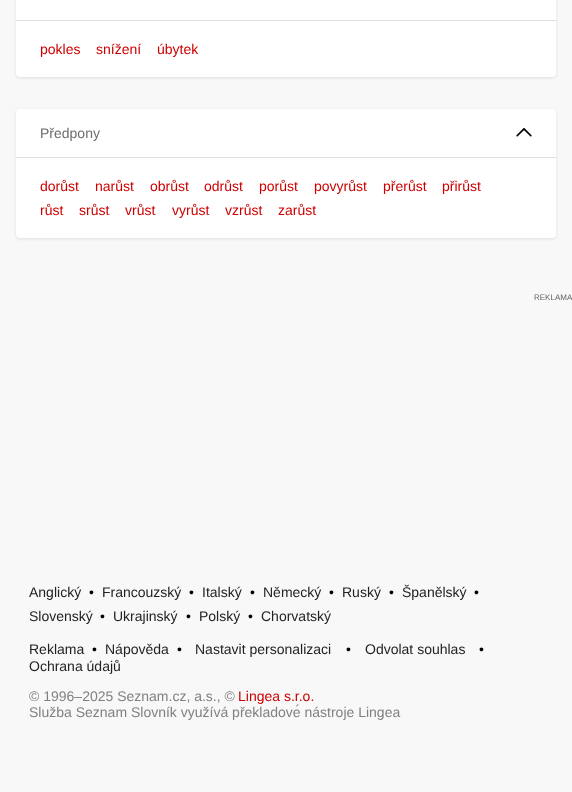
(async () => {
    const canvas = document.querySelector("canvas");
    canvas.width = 572;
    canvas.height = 792;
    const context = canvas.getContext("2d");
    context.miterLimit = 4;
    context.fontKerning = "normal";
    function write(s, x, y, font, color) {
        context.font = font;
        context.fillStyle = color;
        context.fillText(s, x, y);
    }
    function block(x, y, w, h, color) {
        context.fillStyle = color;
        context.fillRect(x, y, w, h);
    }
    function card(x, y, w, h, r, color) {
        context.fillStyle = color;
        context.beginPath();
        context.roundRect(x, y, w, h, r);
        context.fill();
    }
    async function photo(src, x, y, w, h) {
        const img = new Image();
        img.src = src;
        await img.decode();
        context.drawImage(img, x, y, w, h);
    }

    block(0, 0, 572, 792, "rgb(248, 248, 248)");
    context.fillStyle = "rgba(0, 0, 0, 0.1)";
    context.filter = "blur(1.5px)";
    context.beginPath();
    context.roundRect(16, -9, 540, 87, 4);
    context.fill();
    context.filter = "none";
    card(16, -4, 540, 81, 4, "rgb(255, 255, 255)");
    block(16, 20, 540, 1, "rgb(224, 224, 224)");
    write("pokles", 40, 54, "14px Liberation Sans", "rgb(204, 0, 0)");
    write("snížení", 96, 54, "14px Liberation Sans", "rgb(204, 0, 0)");
    write("úbytek", 157, 54, "14px Liberation Sans", "rgb(204, 0, 0)");
    context.fillStyle = "rgba(0, 0, 0, 0.1)";
    context.filter = "blur(1.5px)";
    context.beginPath();
    context.roundRect(16, 110, 540, 129, 4);
    context.fill();
    context.filter = "none";
    card(16, 109, 540, 129, 4, "rgb(255, 255, 255)");
    block(16, 157, 540, 1, "rgb(224, 224, 224)");
    write("Předpony", 40, 138, "14px Liberation Sans", "rgb(109, 109, 109)");
    await photo("media/1.png", 516, 128, 16, 9);
    write("dorůst", 40, 191, "14px Liberation Sans", "rgb(204, 0, 0)");
    write("narůst", 95, 191, "14px Liberation Sans", "rgb(204, 0, 0)");
    write("obrůst", 150, 191, "14px Liberation Sans", "rgb(204, 0, 0)");
    write("odrůst", 204, 191, "14px Liberation Sans", "rgb(204, 0, 0)");
    write("porůst", 259, 191, "14px Liberation Sans", "rgb(204, 0, 0)");
    write("povyrůst", 314, 191, "14px Liberation Sans", "rgb(204, 0, 0)");
    write("přerůst", 383, 191, "14px Liberation Sans", "rgb(204, 0, 0)");
    write("přirůst", 442, 191, "14px Liberation Sans", "rgb(204, 0, 0)");
    write("růst", 40, 215, "14px Liberation Sans", "rgb(204, 0, 0)");
    write("srůst", 79, 215, "14px Liberation Sans", "rgb(204, 0, 0)");
    write("vrůst", 125, 215, "14px Liberation Sans", "rgb(204, 0, 0)");
    write("vyrůst", 172, 215, "14px Liberation Sans", "rgb(204, 0, 0)");
    write("vzrůst", 225, 215, "14px Liberation Sans", "rgb(204, 0, 0)");
    write("zarůst", 278, 215, "14px Liberation Sans", "rgb(204, 0, 0)");
    write("REKLAMA", 534, 300, "8px Liberation Sans", "rgb(102, 102, 102)");
    write("Anglický", 29, 597, "14px Liberation Sans", "rgb(34, 34, 34)");
    write("•", 89, 597, "14px Liberation Sans", "rgb(0, 0, 0)");
    write("Francouzský", 102, 597, "14px Liberation Sans", "rgb(34, 34, 34)");
    write("•", 189, 597, "14px Liberation Sans", "rgb(0, 0, 0)");
    write("Italský", 202, 597, "14px Liberation Sans", "rgb(34, 34, 34)");
    write("•", 250, 597, "14px Liberation Sans", "rgb(0, 0, 0)");
    write("Německý", 263, 597, "14px Liberation Sans", "rgb(34, 34, 34)");
    write("•", 329, 597, "14px Liberation Sans", "rgb(0, 0, 0)");
    write("Ruský", 342, 597, "14px Liberation Sans", "rgb(34, 34, 34)");
    write("•", 389, 597, "14px Liberation Sans", "rgb(0, 0, 0)");
    write("Španělský", 402, 597, "14px Liberation Sans", "rgb(34, 34, 34)");
    write("•", 474, 597, "14px Liberation Sans", "rgb(0, 0, 0)");
    write("Slovenský", 29, 621, "14px Liberation Sans", "rgb(34, 34, 34)");
    write("•", 100, 621, "14px Liberation Sans", "rgb(0, 0, 0)");
    write("Ukrajinský", 113, 621, "14px Liberation Sans", "rgb(34, 34, 34)");
    write("•", 186, 621, "14px Liberation Sans", "rgb(0, 0, 0)");
    write("Polský", 199, 621, "14px Liberation Sans", "rgb(34, 34, 34)");
    write("•", 248, 621, "14px Liberation Sans", "rgb(0, 0, 0)");
    write("Chorvatský", 261, 621, "14px Liberation Sans", "rgb(34, 34, 34)");
    write("Reklama", 29, 654, "14px Liberation Sans", "rgb(34, 34, 34)");
    write("•", 92, 654, "14px Liberation Sans", "rgb(0, 0, 0)");
    write("Nápověda", 105, 654, "14px Liberation Sans", "rgb(34, 34, 34)");
    write("•", 177, 654, "14px Liberation Sans", "rgb(0, 0, 0)");
    write("Nastavit personalizaci", 195, 654, "14px Liberation Sans", "rgb(34, 34, 34)");
    write("•", 346, 654, "14px Liberation Sans", "rgb(0, 0, 0)");
    write("Odvolat souhlas", 365, 654, "14px Liberation Sans", "rgb(34, 34, 34)");
    write("•", 479, 654, "14px Liberation Sans", "rgb(0, 0, 0)");
    write("Ochrana údajů", 29, 671, "14px Liberation Sans", "rgb(34, 34, 34)");
    write("© 1996–2025 Seznam.cz, a.s., ©", 29, 701, "14px Liberation Sans", "rgb(128, 128, 128)");
    write("Lingea s.r.o.", 238, 701, "14px Liberation Sans", "rgb(204, 0, 0)");
    write("Služba Seznam Slovník využívá překladové nástroje Lingea", 29, 717, "14px Liberation Sans", "rgb(128, 128, 128)");
})();
